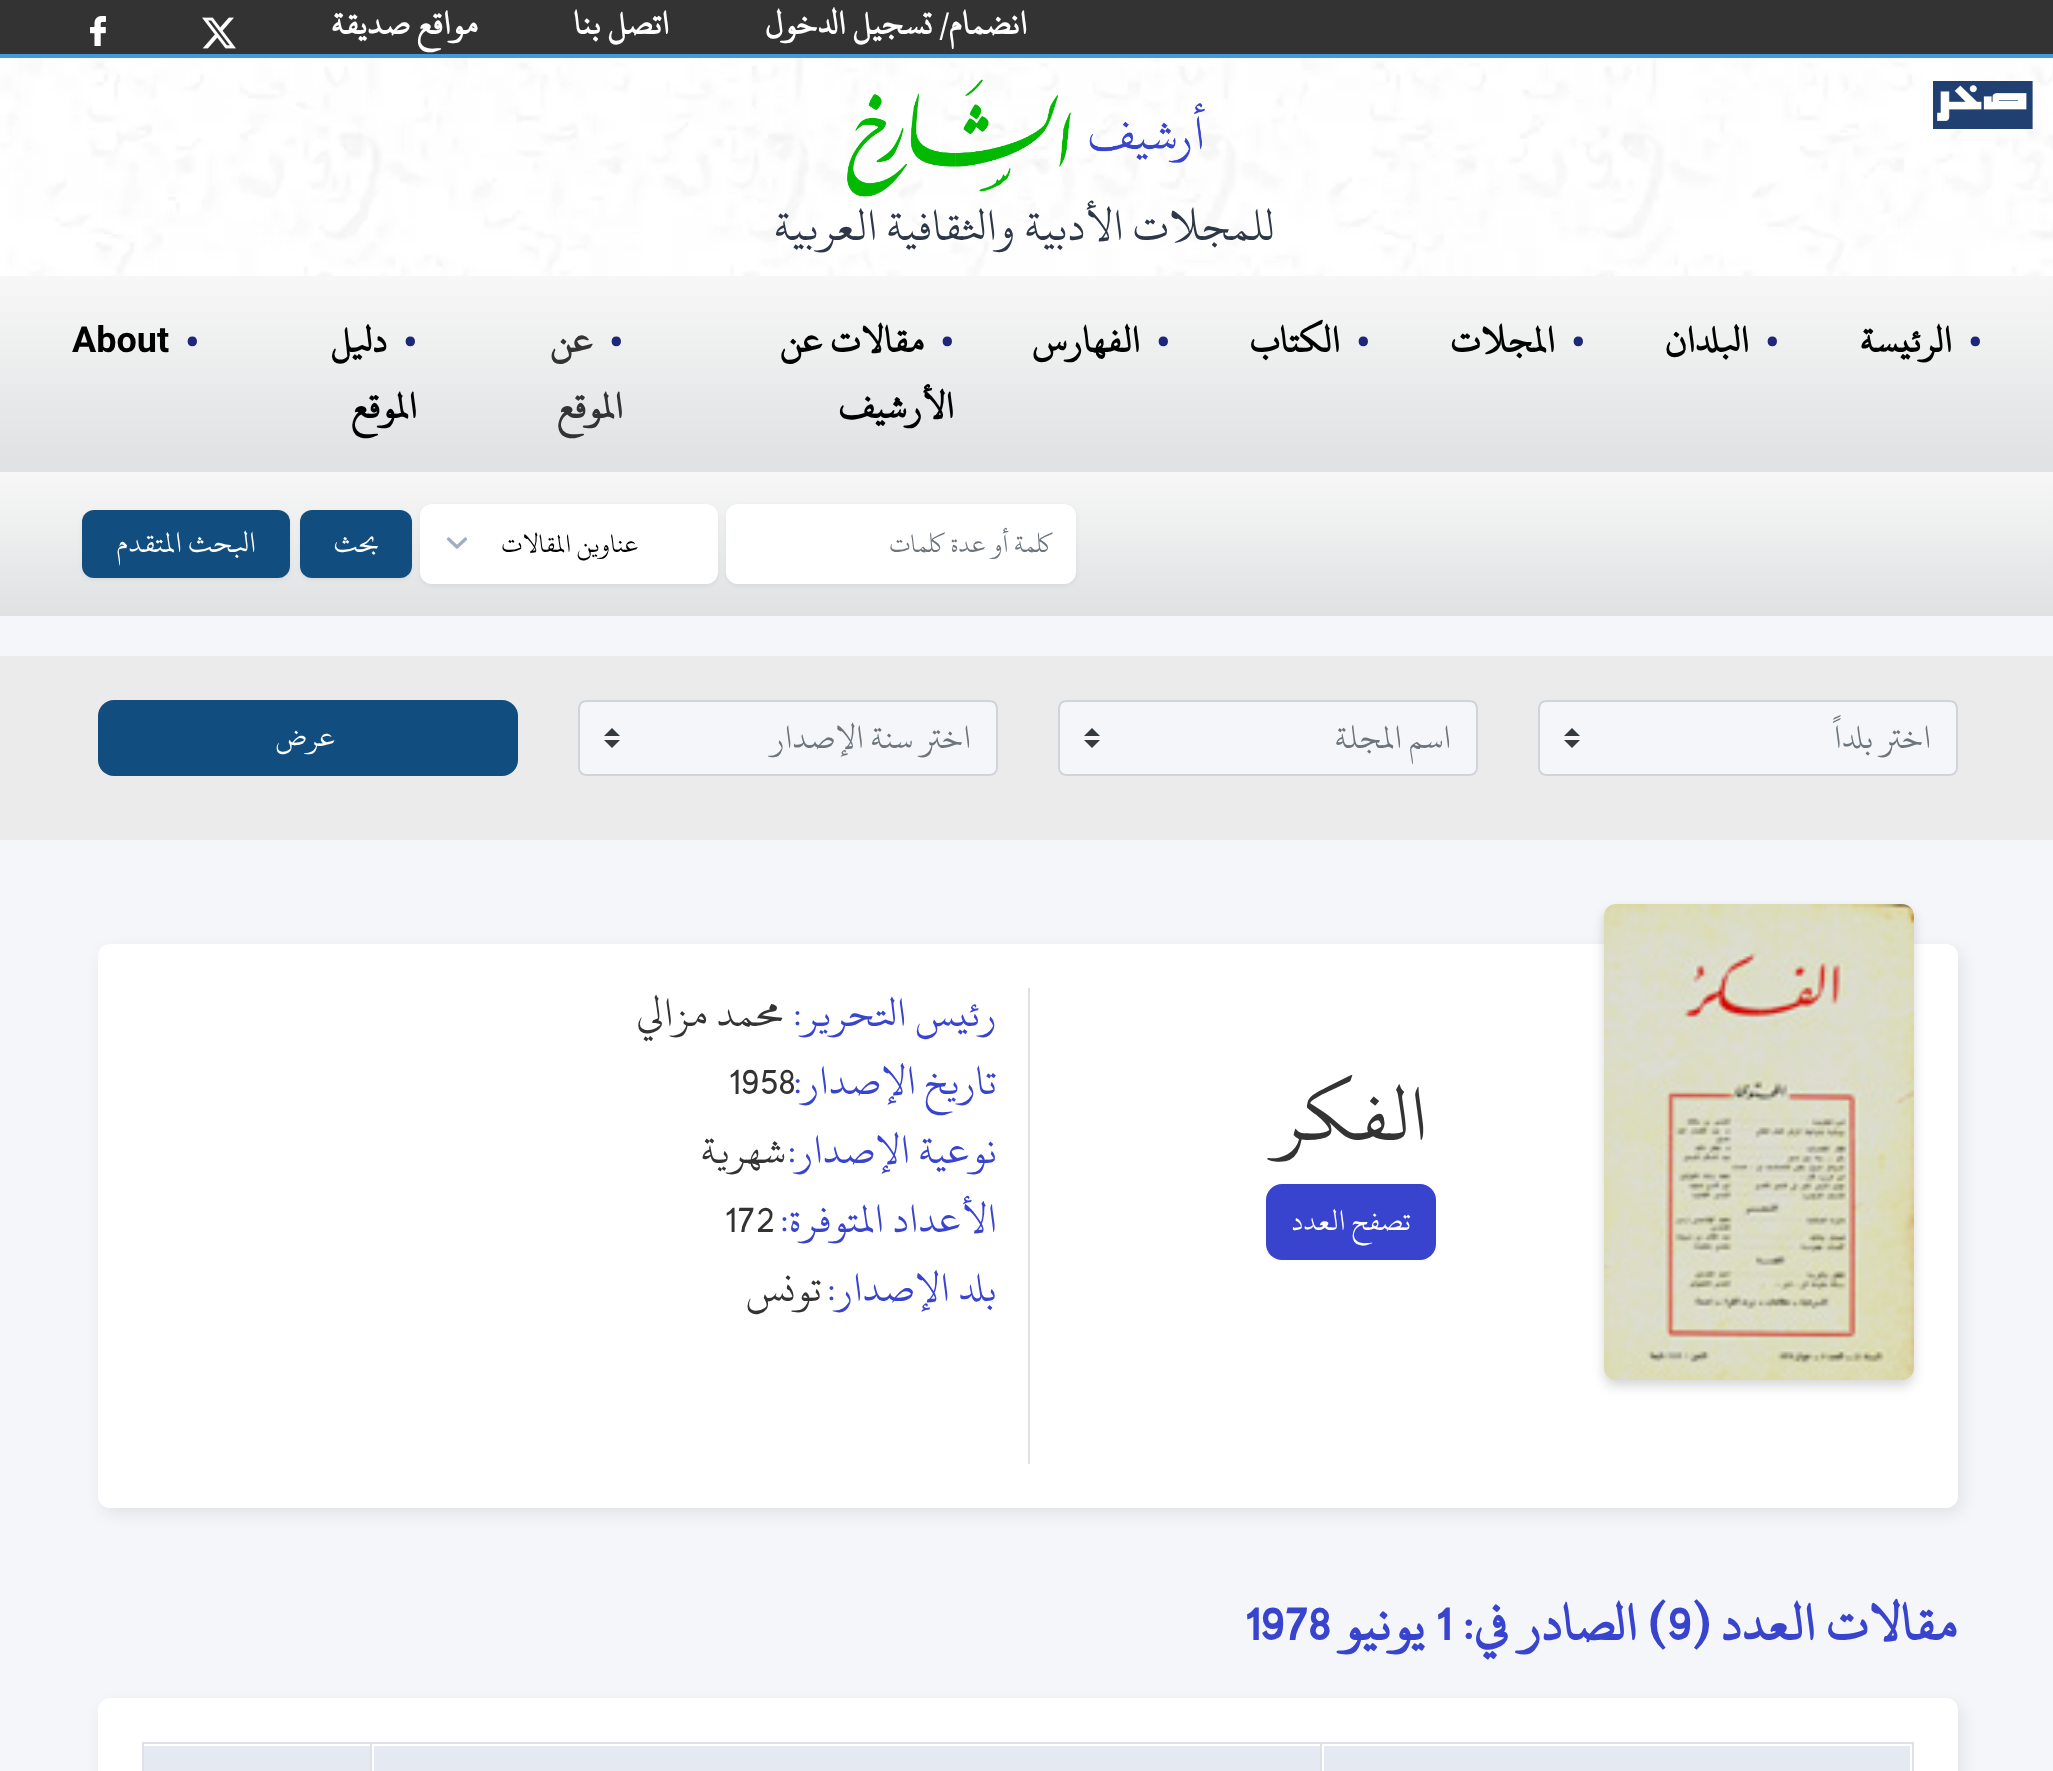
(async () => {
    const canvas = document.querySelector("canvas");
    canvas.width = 2053;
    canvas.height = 1771;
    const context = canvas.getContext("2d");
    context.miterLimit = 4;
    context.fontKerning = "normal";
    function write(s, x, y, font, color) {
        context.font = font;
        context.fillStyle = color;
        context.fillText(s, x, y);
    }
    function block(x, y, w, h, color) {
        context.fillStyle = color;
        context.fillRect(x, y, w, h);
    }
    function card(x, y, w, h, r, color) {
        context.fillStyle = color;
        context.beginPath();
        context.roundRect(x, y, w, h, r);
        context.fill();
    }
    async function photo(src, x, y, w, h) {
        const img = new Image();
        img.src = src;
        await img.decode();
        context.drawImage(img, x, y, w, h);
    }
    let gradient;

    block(0, 0, 2053, 1771, "rgb(244, 246, 249)");
    block(0, 0, 2053, 54, "rgb(51, 51, 51)");
    block(0, 54, 2053, 4, "rgb(66, 153, 225)");
    context.direction = "rtl";
    write("انضمام/ تسجيل الدخول", 1027, 34, "bold 36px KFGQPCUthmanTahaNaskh", "rgb(255, 255, 255)");
    write("اتصل بنا", 669, 34, "bold 36px KFGQPCUthmanTahaNaskh", "rgb(255, 255, 255)");
    write("مواقع صديقة", 478, 34, "bold 36px KFGQPCUthmanTahaNaskh", "rgb(255, 255, 255)");
    await photo("media/1.png", 202, 17, 34, 32);
    await photo("media/2.png", 90, 16, 16, 30);
    block(0, 58, 2053, 218, "rgb(255, 255, 255)");
    await photo("media/3.png", 0, 58, 2053, 218);
    await photo("media/4.png", 1933, 81, 100, 48);
    await photo("media/5.png", 847, 79, 358, 118);
    write("للمجلات الأدبية والثقافية العربية", 1275, 240, "48px KFGQPCUthmanTahaNaskh", "rgb(45, 55, 72)");
    gradient = context.createLinearGradient(1027, 276, 1027, 472);
    gradient.addColorStop(0, "rgb(247, 247, 247)");
    gradient.addColorStop(1, "rgb(223, 225, 226)");
    context.fillStyle = gradient;
    context.fillRect(0, 276, 2053, 196);
    context.direction = "ltr";
    write("•", 1968, 356, "bold 40px Roboto", "rgb(30, 38, 121)");
    context.direction = "rtl";
    write("الرئيسة", 1952, 352, "bold 40px KFGQPCUthmanTahaNaskh", "rgb(0, 0, 0)");
    context.direction = "ltr";
    write("•", 1765, 356, "bold 40px Roboto", "rgb(30, 38, 121)");
    context.direction = "rtl";
    write("البلدان", 1749, 352, "bold 40px KFGQPCUthmanTahaNaskh", "rgb(0, 0, 0)");
    context.direction = "ltr";
    write("•", 1571, 356, "bold 40px Roboto", "rgb(30, 38, 121)");
    context.direction = "rtl";
    write("المجلات", 1555, 352, "bold 40px KFGQPCUthmanTahaNaskh", "rgb(0, 0, 0)");
    context.direction = "ltr";
    write("•", 1356, 356, "bold 40px Roboto", "rgb(30, 38, 121)");
    context.direction = "rtl";
    write("الكتاب", 1340, 352, "bold 40px KFGQPCUthmanTahaNaskh", "rgb(0, 0, 0)");
    context.direction = "ltr";
    write("•", 1156, 356, "bold 40px Roboto", "rgb(30, 38, 121)");
    context.direction = "rtl";
    write("الفهارس", 1140, 352, "bold 40px KFGQPCUthmanTahaNaskh", "rgb(0, 0, 0)");
    context.direction = "ltr";
    write("•", 940, 356, "bold 40px Roboto", "rgb(30, 38, 121)");
    context.direction = "rtl";
    write("مقالات عن", 924, 352, "bold 40px KFGQPCUthmanTahaNaskh", "rgb(0, 0, 0)");
    write("الأرشيف", 954, 418, "bold 40px KFGQPCUthmanTahaNaskh", "rgb(0, 0, 0)");
    context.direction = "ltr";
    write("•", 609, 356, "bold 40px Roboto", "rgb(30, 38, 121)");
    context.direction = "rtl";
    write("عن", 593, 352, "bold 40px KFGQPCUthmanTahaNaskh", "rgb(51, 51, 51)");
    write("الموقع", 623, 418, "bold 40px KFGQPCUthmanTahaNaskh", "rgb(51, 51, 51)");
    context.direction = "ltr";
    write("•", 403, 356, "bold 40px Roboto", "rgb(30, 38, 121)");
    context.direction = "rtl";
    write("دليل", 387, 352, "bold 40px KFGQPCUthmanTahaNaskh", "rgb(0, 0, 0)");
    write("الموقع", 417, 418, "bold 40px KFGQPCUthmanTahaNaskh", "rgb(0, 0, 0)");
    context.direction = "ltr";
    write("•", 185, 356, "bold 40px Roboto", "rgb(30, 38, 121)");
    write("About", 72, 352, "bold 36px Roboto", "rgb(0, 0, 0)");
    gradient = context.createLinearGradient(1027, 472, 1027, 616);
    gradient.addColorStop(0, "rgb(247, 247, 247)");
    gradient.addColorStop(1, "rgb(223, 225, 226)");
    context.fillStyle = gradient;
    context.fillRect(0, 472, 2053, 144);
    context.fillStyle = "rgba(0, 0, 0, 0.05)";
    context.filter = "blur(2px)";
    context.beginPath();
    context.roundRect(726, 506, 350, 80, 12);
    context.fill();
    context.filter = "none";
    card(726, 504, 350, 80, 12, "rgb(255, 255, 255)");
    context.direction = "rtl";
    write("كلمة أو عدة كلمات", 1053, 552, "28px KFGQPCUthmanTahaNaskh", "rgb(108, 117, 125)");
    context.fillStyle = "rgba(0, 0, 0, 0.05)";
    context.filter = "blur(2px)";
    context.beginPath();
    context.roundRect(420, 506, 298, 80, 12);
    context.fill();
    context.filter = "none";
    card(420, 504, 298, 80, 12, "rgb(255, 255, 255)");
    context.beginPath();
    context.moveTo(448.5, 539);
    context.lineTo(457, 547);
    context.lineTo(465.5, 539);
    context.strokeStyle = "rgb(160, 174, 192)";
    context.lineWidth = 3.2;
    context.lineCap = "round";
    context.lineJoin = "round";
    context.stroke();
    write("عناوين المقالات", 639, 552, "28px KFGQPCUthmanTahaNaskh", "rgb(0, 0, 0)");
    context.fillStyle = "rgba(0, 0, 0, 0.05)";
    context.filter = "blur(2px)";
    context.beginPath();
    context.roundRect(300, 512, 112, 68, 12);
    context.fill();
    context.filter = "none";
    card(300, 510, 112, 68, 12, "rgb(17, 77, 126)");
    write("بحث", 379, 552, "32px KFGQPCUthmanTahaNaskh", "rgb(255, 255, 255)");
    context.fillStyle = "rgba(0, 0, 0, 0.05)";
    context.filter = "blur(2px)";
    context.beginPath();
    context.roundRect(82, 512, 208, 68, 12);
    context.fill();
    context.filter = "none";
    card(82, 510, 208, 68, 12, "rgb(17, 77, 126)");
    write("البحث المتقدم", 256, 552, "32px KFGQPCUthmanTahaNaskh", "rgb(255, 255, 255)");
    block(0, 656, 2053, 184, "rgb(235, 235, 235)");
    card(1538, 700, 420, 76, 8, "rgb(244, 246, 249)");
    context.fillStyle = "rgb(52, 58, 64)";
    context.beginPath();
    context.moveTo(1572, 728);
    context.lineTo(1564, 736);
    context.lineTo(1580, 736);
    context.closePath();
    context.moveTo(1572, 748);
    context.lineTo(1564, 740);
    context.lineTo(1580, 740);
    context.closePath();
    context.fill();
    context.beginPath();
    context.roundRect(1539, 701, 418, 74, 7);
    context.strokeStyle = "rgb(206, 212, 218)";
    context.lineWidth = 2;
    context.lineJoin = "miter";
    context.stroke();
    write("اختر بلداً", 1931, 748, "36px KFGQPCUthmanTahaNaskh", "rgb(108, 117, 125)");
    card(1058, 700, 420, 76, 8, "rgb(244, 246, 249)");
    context.fillStyle = "rgb(52, 58, 64)";
    context.beginPath();
    context.moveTo(1092, 728);
    context.lineTo(1084, 736);
    context.lineTo(1100, 736);
    context.closePath();
    context.moveTo(1092, 748);
    context.lineTo(1084, 740);
    context.lineTo(1100, 740);
    context.closePath();
    context.fill();
    context.beginPath();
    context.roundRect(1059, 701, 418, 74, 7);
    context.stroke();
    write("اسم المجلة", 1451, 748, "36px KFGQPCUthmanTahaNaskh", "rgb(108, 117, 125)");
    card(578, 700, 420, 76, 8, "rgb(244, 246, 249)");
    context.fillStyle = "rgb(52, 58, 64)";
    context.beginPath();
    context.moveTo(612, 728);
    context.lineTo(604, 736);
    context.lineTo(620, 736);
    context.closePath();
    context.moveTo(612, 748);
    context.lineTo(604, 740);
    context.lineTo(620, 740);
    context.closePath();
    context.fill();
    context.beginPath();
    context.roundRect(579, 701, 418, 74, 7);
    context.stroke();
    write("اختر سنة الإصدار", 971, 748, "36px KFGQPCUthmanTahaNaskh", "rgb(108, 117, 125)");
    card(98, 700, 420, 76, 16, "rgb(17, 77, 126)");
    write("عرض", 336, 746, "32px KFGQPCUthmanTahaNaskh", "rgb(255, 255, 255)");
    context.fillStyle = "rgba(0, 0, 0, 0.08)";
    context.filter = "blur(8px)";
    context.beginPath();
    context.roundRect(102, 950, 1860, 564, 12);
    context.fill();
    context.filter = "none";
    card(98, 944, 1860, 564, 12, "rgb(255, 255, 255)");
    block(1028, 988, 2, 476, "rgb(222, 226, 230)");
    context.fillStyle = "rgba(0, 0, 0, 0.16)";
    context.filter = "blur(6px)";
    context.beginPath();
    context.roundRect(1604, 910, 310, 476, 12);
    context.fill();
    context.filter = "none";
    await photo("media/6.png", 1604, 904, 310, 476);
    write("الفكر", 1428, 1140, "84px KFGQPCUthmanTahaNaskh", "rgb(51, 51, 51)");
    card(1266, 1184, 170, 76, 16, "rgb(56, 68, 205)");
    write("تصفح العدد", 1411, 1230, "32px KFGQPCUthmanTahaNaskh", "rgb(255, 255, 255)");
    write("رئيس التحرير:", 997, 1026, "44px KFGQPCUthmanTahaNaskh", "rgb(56, 68, 205)");
    write("محمد مزالي", 784, 1026, "44px KFGQPCUthmanTahaNaskh", "rgb(51, 51, 51)");
    write("تاريخ الإصدار:", 997, 1094, "44px KFGQPCUthmanTahaNaskh", "rgb(56, 68, 205)");
    context.direction = "ltr";
    write("1958", 729, 1094, "44px KFGQPCUthmanTahaNaskh", "rgb(51, 51, 51)");
    context.direction = "rtl";
    write("نوعية الإصدار:", 997, 1163, "44px KFGQPCUthmanTahaNaskh", "rgb(56, 68, 205)");
    write("شهرية", 786, 1163, "44px KFGQPCUthmanTahaNaskh", "rgb(51, 51, 51)");
    write("الأعداد المتوفرة:", 997, 1232, "44px KFGQPCUthmanTahaNaskh", "rgb(56, 68, 205)");
    context.direction = "ltr";
    write("172", 725, 1232, "44px KFGQPCUthmanTahaNaskh", "rgb(51, 51, 51)");
    context.direction = "rtl";
    write("بلد الإصدار:", 997, 1301, "44px KFGQPCUthmanTahaNaskh", "rgb(56, 68, 205)");
    write("تونس", 822, 1301, "44px KFGQPCUthmanTahaNaskh", "rgb(51, 51, 51)");
    write("مقالات العدد (", 1957, 1640, "bold 56px KFGQPCUthmanTahaNaskh", "rgb(56, 68, 205)");
    context.direction = "ltr";
    write("9", 1667, 1640, "bold 56px KFGQPCUthmanTahaNaskh", "rgb(56, 68, 205)");
    context.direction = "rtl";
    write(") الصادر في:", 1667, 1640, "bold 56px KFGQPCUthmanTahaNaskh", "rgb(56, 68, 205)");
    context.direction = "ltr";
    write("1", 1436, 1640, "bold 56px KFGQPCUthmanTahaNaskh", "rgb(56, 68, 205)");
    context.direction = "rtl";
    write("يونيو", 1425, 1640, "bold 56px KFGQPCUthmanTahaNaskh", "rgb(56, 68, 205)");
    context.direction = "ltr";
    write("1978", 1245, 1640, "bold 56px KFGQPCUthmanTahaNaskh", "rgb(56, 68, 205)");
    context.fillStyle = "rgba(0, 0, 0, 0.08)";
    context.filter = "blur(8px)";
    context.beginPath();
    context.roundRect(102, 1704, 1860, 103, 12);
    context.fill();
    context.filter = "none";
    card(98, 1698, 1860, 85, 12, "rgb(255, 255, 255)");
    block(142, 1742, 1772, 2, "rgb(222, 226, 230)");
    block(1912, 1742, 2, 29, "rgb(222, 226, 230)");
    block(142, 1742, 2, 29, "rgb(222, 226, 230)");
    block(1324, 1746, 586, 25, "rgb(228, 233, 242)");
    block(374, 1746, 946, 25, "rgb(228, 233, 242)");
    block(1320, 1742, 2, 29, "rgb(222, 226, 230)");
    block(144, 1746, 226, 25, "rgb(228, 233, 242)");
    block(370, 1742, 2, 29, "rgb(222, 226, 230)");
})();
